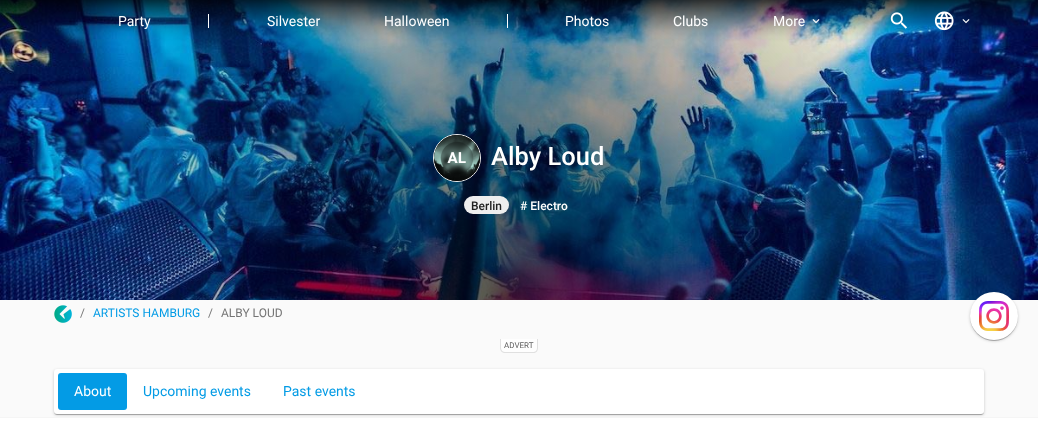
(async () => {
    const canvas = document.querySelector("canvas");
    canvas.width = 1038;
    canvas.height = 426;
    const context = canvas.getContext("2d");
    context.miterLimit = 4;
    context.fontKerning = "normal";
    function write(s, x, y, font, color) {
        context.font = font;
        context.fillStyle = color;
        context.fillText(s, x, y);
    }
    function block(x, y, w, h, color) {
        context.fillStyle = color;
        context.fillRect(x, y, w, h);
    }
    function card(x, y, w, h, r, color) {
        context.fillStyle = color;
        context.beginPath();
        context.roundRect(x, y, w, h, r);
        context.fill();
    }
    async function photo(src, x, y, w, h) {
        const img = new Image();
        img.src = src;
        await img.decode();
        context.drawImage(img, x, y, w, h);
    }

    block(0, 0, 1038, 426, "rgb(250, 250, 250)");
    await photo("media/5.png", 0, 0, 1038, 300);
    write("Party", 118, 26, "14px Roboto", "rgb(255, 255, 255)");
    block(208, 14, 1, 14, "rgb(255, 255, 255)");
    write("Silvester", 267, 26, "14px Roboto", "rgb(255, 255, 255)");
    write("Halloween", 384, 26, "14px Roboto", "rgb(255, 255, 255)");
    block(507, 14, 1, 14, "rgb(255, 255, 255)");
    write("Photos", 565, 26, "14px Roboto", "rgb(255, 255, 255)");
    write("Clubs", 673, 26, "14px Roboto", "rgb(255, 255, 255)");
    write("More", 773, 26, "14px Roboto", "rgb(255, 255, 255)");
    await photo("media/1.png", 812, 19, 8, 5);
    await photo("media/2.png", 890, 12, 17, 17);
    await photo("media/3.png", 934, 11, 20, 20);
    await photo("media/4.png", 962, 19, 8, 5);
    context.fillStyle = "rgb(0, 0, 0)";
    context.beginPath();
    context.arc(457, 158, 23.5, 0, Math.PI * 2);
    context.fill();
    context.strokeStyle = "rgb(238, 238, 238)";
    context.stroke();
    await photo("media/6.png", 434, 135, 46, 46);
    write("Alby Loud", 491, 165, "500 25.5px Roboto", "rgb(255, 255, 255)");
    card(464, 196, 45, 18, 9, "rgb(238, 238, 238)");
    write("Berlin", 471, 210, "500 12px Roboto", "rgb(33, 33, 33)");
    write("# Electro", 520, 210, "500 12px Roboto", "rgb(255, 255, 255)");
    context.fillStyle = "rgba(0, 0, 0, 0.2)";
    context.filter = "blur(1.5px)";
    context.beginPath();
    context.roundRect(54, 370, 930, 45, 3);
    context.fill();
    context.filter = "none";
    block(0, 418, 1038, 8, "rgb(255, 255, 255)");
    context.fillStyle = "rgba(0, 0, 0, 0.12)";
    context.filter = "blur(0.5px)";
    context.beginPath();
    context.roundRect(55, 372, 928, 43, 2);
    context.fill();
    context.filter = "none";
    context.fillStyle = "rgba(0, 0, 0, 0.14)";
    context.filter = "blur(0.5px)";
    context.beginPath();
    context.roundRect(54, 370, 930, 45, 3);
    context.fill();
    context.filter = "none";
    block(0, 417, 1038, 1, "rgb(245, 245, 245)");
    context.fillStyle = "rgba(0, 0, 0, 0.12)";
    context.filter = "blur(0.5px)";
    context.beginPath();
    context.roundRect(971, 295, 46, 46, 23);
    context.fill();
    context.filter = "none";
    context.fillStyle = "rgba(0, 0, 0, 0.14)";
    context.filter = "blur(0.5px)";
    context.beginPath();
    context.roundRect(970, 293, 48, 48, 24);
    context.fill();
    context.filter = "none";
    context.fillStyle = "rgba(0, 0, 0, 0.2)";
    context.filter = "blur(1.5px)";
    context.beginPath();
    context.roundRect(970, 293, 48, 48, 24);
    context.fill();
    context.filter = "none";
    context.fillStyle = "rgb(255, 255, 255)";
    context.beginPath();
    context.arc(994, 316, 24, 0, Math.PI * 2);
    context.fill();
    await photo("media/7.png", 979, 301, 30, 30);
    await photo("media/8.png", 54, 305, 18, 18);
    write("/", 80, 317, "12px Roboto", "rgb(117, 117, 117)");
    write("ARTISTS HAMBURG", 93, 317, "12px Roboto", "rgb(3, 155, 229)");
    write("/", 208, 317, "12px Roboto", "rgb(117, 117, 117)");
    write("ALBY LOUD", 221, 317, "12px Roboto", "rgb(117, 117, 117)");
    context.fillStyle = "rgb(254, 254, 254)";
    context.beginPath();
    context.roundRect(501, 339, 36, 13, [0, 0, 4, 4]);
    context.fill();
    context.fillStyle = "rgb(224, 224, 224)";
    context.beginPath();
    context.moveTo(500, 339);
    context.lineTo(538, 339);
    context.lineTo(538, 348);
    context.bezierCurveTo(538, 351, 536, 353, 533.5, 353);
    context.lineTo(505, 353);
    context.bezierCurveTo(502.5, 353, 500, 351, 500, 348);
    context.closePath();
    context.moveTo(501, 339);
    context.lineTo(537, 339);
    context.lineTo(537, 348);
    context.bezierCurveTo(537, 350.5, 535.5, 352, 533.5, 352);
    context.lineTo(505, 352);
    context.bezierCurveTo(503, 352, 501, 350.5, 501, 348);
    context.closePath();
    context.fill("evenodd");
    write("ADVERT", 504, 348, "8px Roboto", "rgb(97, 97, 97)");
    card(54, 369, 930, 45, 3, "rgb(255, 255, 255)");
    card(58, 373, 69, 37, 3, "rgb(3, 155, 229)");
    write("About", 74, 396, "14px Roboto", "rgb(255, 255, 255)");
    write("Upcoming events", 143, 396, "14px Roboto", "rgb(3, 155, 229)");
    write("Past events", 283, 396, "14px Roboto", "rgb(3, 155, 229)");
})();
